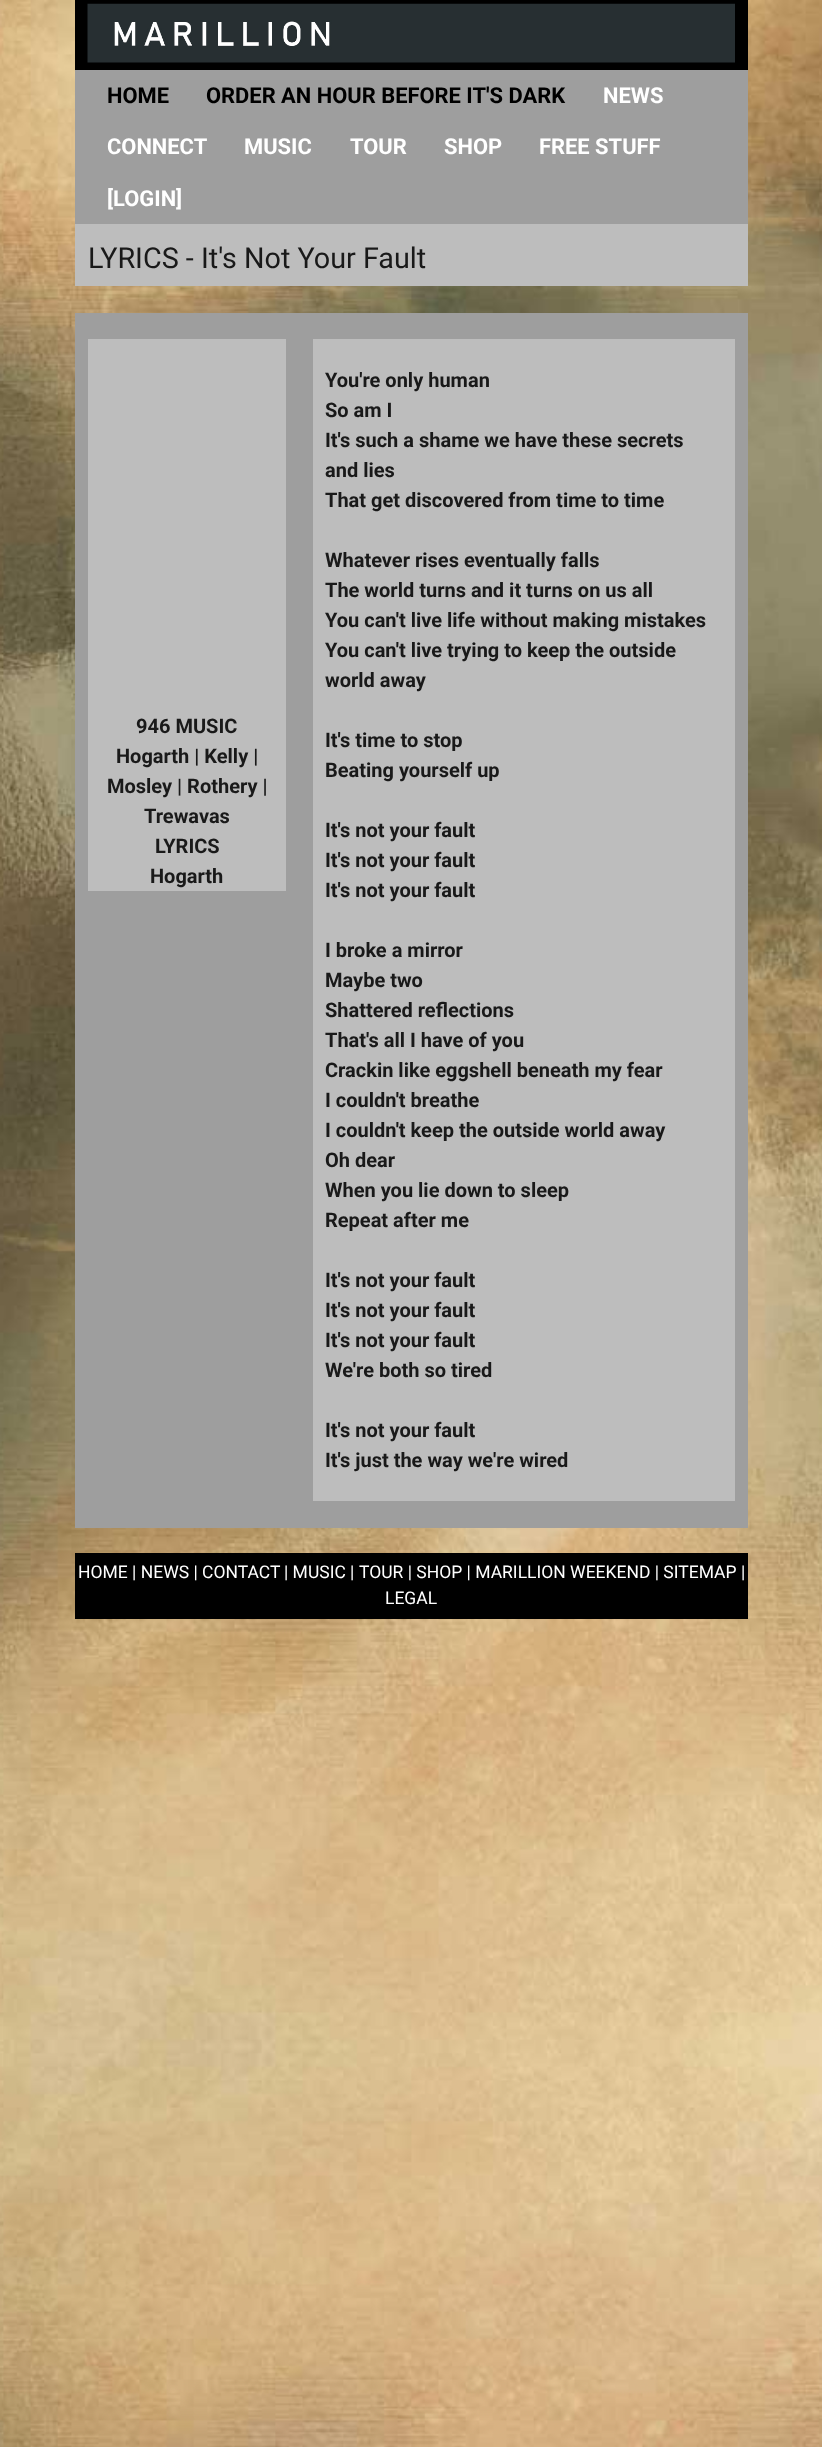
(async () => {
    const canvas = document.querySelector("canvas");
    canvas.width = 822;
    canvas.height = 2447;
    const context = canvas.getContext("2d");
    context.miterLimit = 4;
    context.fontKerning = "normal";
    function write(s, x, y, font, color) {
        context.font = font;
        context.fillStyle = color;
        context.fillText(s, x, y);
    }
    function block(x, y, w, h, color) {
        context.fillStyle = color;
        context.fillRect(x, y, w, h);
    }
    async function photo(src, x, y, w, h) {
        const img = new Image();
        img.src = src;
        await img.decode();
        context.drawImage(img, x, y, w, h);
    }

    block(0, 0, 822, 2447, "rgb(255, 255, 255)");
    await photo("media/1.png", 0, 0, 822, 2447);
    block(75, 0, 673, 70, "rgb(0, 0, 0)");
    await photo("media/2.png", 87, 3, 648, 60);
    block(75, 70, 673, 154, "rgb(158, 158, 158)");
    write("HOME", 107, 103, "bold 21.9px Roboto", "rgb(0, 0, 0)");
    write("ORDER AN HOUR BEFORE IT'S DARK", 206, 103, "bold 21.9px Roboto", "rgb(0, 0, 0)");
    write("NEWS", 603, 103, "bold 21.9px Roboto", "rgb(255, 255, 255)");
    write("CONNECT", 107, 154, "bold 21.9px Roboto", "rgb(255, 255, 255)");
    write("MUSIC", 244, 154, "bold 21.9px Roboto", "rgb(255, 255, 255)");
    write("TOUR", 350, 154, "bold 21.9px Roboto", "rgb(255, 255, 255)");
    write("SHOP", 444, 154, "bold 21.9px Roboto", "rgb(255, 255, 255)");
    write("FREE STUFF", 539, 154, "bold 21.9px Roboto", "rgb(255, 255, 255)");
    write("[LOGIN]", 107, 206, "bold 21.9px Roboto", "rgb(255, 255, 255)");
    block(75, 224, 673, 62, "rgb(189, 189, 189)");
    write("LYRICS - It's Not Your Fault", 88, 268, "28.75px Roboto", "rgb(25, 25, 25)");
    block(75, 313, 673, 1215, "rgb(158, 158, 158)");
    block(88, 339, 198, 552, "rgb(189, 189, 189)");
    write("946 MUSIC", 136, 733, "bold 20px Roboto", "rgb(25, 25, 25)");
    write("Hogarth | Kelly |", 116, 763, "bold 20px Roboto", "rgb(25, 25, 25)");
    write("Mosley | Rothery |", 107, 793, "bold 20px Roboto", "rgb(25, 25, 25)");
    write("Trewavas", 144, 823, "bold 20px Roboto", "rgb(25, 25, 25)");
    write("LYRICS", 155, 853, "bold 20px Roboto", "rgb(25, 25, 25)");
    write("Hogarth", 150, 883, "bold 20px Roboto", "rgb(25, 25, 25)");
    block(313, 339, 422, 1162, "rgb(189, 189, 189)");
    write("You're only human", 325, 387, "bold 20px Roboto", "rgb(25, 25, 25)");
    write("So am I", 325, 417, "bold 20px Roboto", "rgb(25, 25, 25)");
    write("It's such a shame we have these secrets", 325, 447, "bold 20px Roboto", "rgb(25, 25, 25)");
    write("and lies", 325, 477, "bold 20px Roboto", "rgb(25, 25, 25)");
    write("That get discovered from time to time", 325, 507, "bold 20px Roboto", "rgb(25, 25, 25)");
    write("Whatever rises eventually falls", 325, 567, "bold 20px Roboto", "rgb(25, 25, 25)");
    write("The world turns and it turns on us all", 325, 597, "bold 20px Roboto", "rgb(25, 25, 25)");
    write("You can't live life without making mistakes", 325, 627, "bold 20px Roboto", "rgb(25, 25, 25)");
    write("You can't live trying to keep the outside", 325, 657, "bold 20px Roboto", "rgb(25, 25, 25)");
    write("world away", 325, 687, "bold 20px Roboto", "rgb(25, 25, 25)");
    write("It's time to stop", 325, 747, "bold 20px Roboto", "rgb(25, 25, 25)");
    write("Beating yourself up", 325, 777, "bold 20px Roboto", "rgb(25, 25, 25)");
    write("It's not your fault", 325, 837, "bold 20px Roboto", "rgb(25, 25, 25)");
    write("It's not your fault", 325, 867, "bold 20px Roboto", "rgb(25, 25, 25)");
    write("It's not your fault", 325, 897, "bold 20px Roboto", "rgb(25, 25, 25)");
    write("I broke a mirror", 325, 957, "bold 20px Roboto", "rgb(25, 25, 25)");
    write("Maybe two", 325, 987, "bold 20px Roboto", "rgb(25, 25, 25)");
    write("Shattered reflections", 325, 1017, "bold 20px Roboto", "rgb(25, 25, 25)");
    write("That's all I have of you", 325, 1047, "bold 20px Roboto", "rgb(25, 25, 25)");
    write("Crackin like eggshell beneath my fear", 325, 1077, "bold 20px Roboto", "rgb(25, 25, 25)");
    write("I couldn't breathe", 325, 1107, "bold 20px Roboto", "rgb(25, 25, 25)");
    write("I couldn't keep the outside world away", 325, 1137, "bold 20px Roboto", "rgb(25, 25, 25)");
    write("Oh dear", 325, 1167, "bold 20px Roboto", "rgb(25, 25, 25)");
    write("When you lie down to sleep", 325, 1197, "bold 20px Roboto", "rgb(25, 25, 25)");
    write("Repeat after me", 325, 1227, "bold 20px Roboto", "rgb(25, 25, 25)");
    write("It's not your fault", 325, 1287, "bold 20px Roboto", "rgb(25, 25, 25)");
    write("It's not your fault", 325, 1317, "bold 20px Roboto", "rgb(25, 25, 25)");
    write("It's not your fault", 325, 1347, "bold 20px Roboto", "rgb(25, 25, 25)");
    write("We're both so tired", 325, 1377, "bold 20px Roboto", "rgb(25, 25, 25)");
    write("It's not your fault", 325, 1437, "bold 20px Roboto", "rgb(25, 25, 25)");
    write("It's just the way we're wired", 325, 1467, "bold 20px Roboto", "rgb(25, 25, 25)");
    block(75, 1553, 673, 66, "rgb(0, 0, 0)");
    write("HOME | NEWS | CONTACT", 78, 1578, "17.5px Roboto", "rgb(255, 255, 255)");
    write("| MUSIC |", 284, 1578, "17.5px Roboto", "rgb(255, 255, 255)");
    write("TOUR | SHOP | MARILLION WEEKEND | SITEMAP |", 359, 1578, "17.5px Roboto", "rgb(255, 255, 255)");
    write("LEGAL", 385, 1604, "17.5px Roboto", "rgb(255, 255, 255)");
})();
